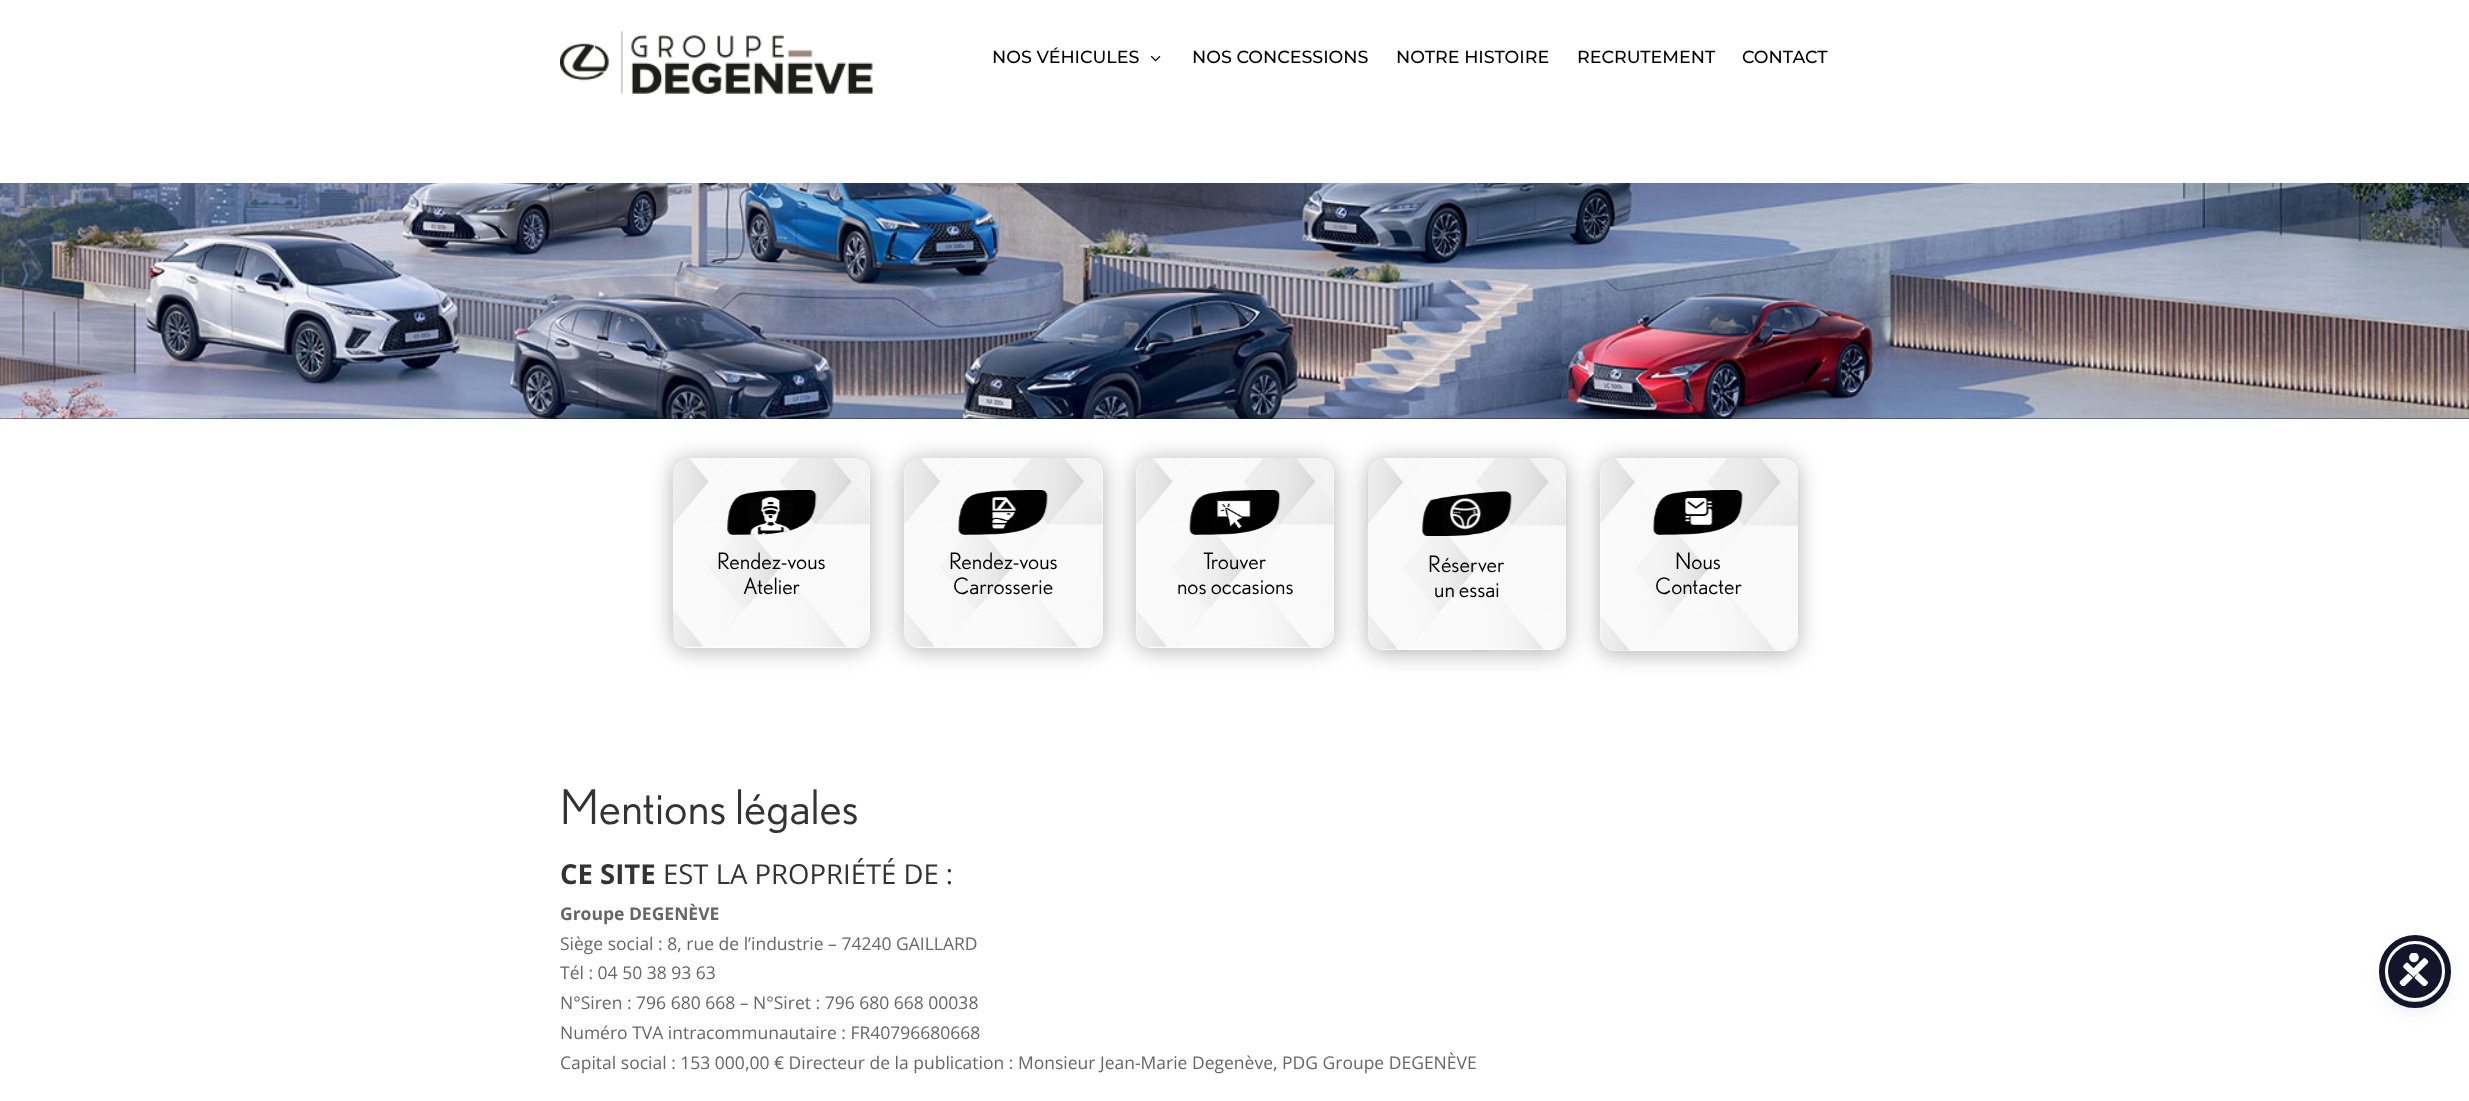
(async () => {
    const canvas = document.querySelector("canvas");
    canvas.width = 2469;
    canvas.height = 1101;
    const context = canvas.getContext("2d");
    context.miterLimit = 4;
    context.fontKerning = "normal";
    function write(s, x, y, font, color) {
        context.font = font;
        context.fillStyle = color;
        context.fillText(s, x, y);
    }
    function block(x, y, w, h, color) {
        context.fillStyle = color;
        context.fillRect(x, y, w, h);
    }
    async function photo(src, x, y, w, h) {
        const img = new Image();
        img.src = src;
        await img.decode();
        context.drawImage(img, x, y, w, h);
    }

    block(0, 0, 2469, 1101, "rgb(255, 255, 255)");
    await photo("media/1.png", 560, 31, 313, 63);
    write("NOS VÉHICULES", 992, 63, "100 17.5px Montserrat", "rgb(0, 0, 0)");
    await photo("media/2.png", 1151, 56, 10, 6);
    write("NOS CONCESSIONS", 1192, 63, "100 17.5px Montserrat", "rgb(0, 0, 0)");
    write("NOTRE HISTOIRE", 1396, 63, "100 17.5px Montserrat", "rgb(0, 0, 0)");
    write("RECRUTEMENT", 1577, 63, "100 17.5px Montserrat", "rgb(0, 0, 0)");
    write("CONTACT", 1742, 63, "100 17.5px Montserrat", "rgb(0, 0, 0)");
    block(0, 418, 2469, 1, "rgb(26, 26, 26)");
    await photo("media/3.png", 0, 183, 2469, 236);
    context.save();
    context.beginPath();
    context.moveTo(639, 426);
    context.lineTo(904, 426);
    context.lineTo(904, 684);
    context.lineTo(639, 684);
    context.closePath();
    context.moveTo(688, 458);
    context.lineTo(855, 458);
    context.bezierCurveTo(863.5, 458, 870, 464.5, 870, 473);
    context.lineTo(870, 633);
    context.bezierCurveTo(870, 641.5, 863.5, 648, 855, 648);
    context.lineTo(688, 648);
    context.bezierCurveTo(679.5, 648, 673, 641.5, 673, 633);
    context.lineTo(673, 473);
    context.bezierCurveTo(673, 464.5, 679.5, 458, 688, 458);
    context.closePath();
    context.clip("evenodd");
    context.fillStyle = "rgba(0, 0, 0, 0.3)";
    context.filter = "blur(11px)";
    context.beginPath();
    context.roundRect(673, 460, 197, 190, 15);
    context.fill();
    context.filter = "none";
    context.restore();
    await photo("media/4.png", 673, 458, 197, 190);
    await photo("media/5.png", 727, 490, 90, 45);
    write("Rendez-vous", 717, 569, "22.5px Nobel", "rgb(0, 0, 0)");
    write("Atelier", 743, 594, "22.5px Nobel", "rgb(0, 0, 0)");
    context.save();
    context.beginPath();
    context.moveTo(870, 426);
    context.lineTo(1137, 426);
    context.lineTo(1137, 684);
    context.lineTo(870, 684);
    context.closePath();
    context.moveTo(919, 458);
    context.lineTo(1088, 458);
    context.bezierCurveTo(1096.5, 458, 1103, 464.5, 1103, 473);
    context.lineTo(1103, 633);
    context.bezierCurveTo(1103, 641.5, 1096.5, 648, 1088, 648);
    context.lineTo(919, 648);
    context.bezierCurveTo(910.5, 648, 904, 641.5, 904, 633);
    context.lineTo(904, 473);
    context.bezierCurveTo(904, 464.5, 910.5, 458, 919, 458);
    context.closePath();
    context.clip("evenodd");
    context.fillStyle = "rgba(0, 0, 0, 0.3)";
    context.filter = "blur(11px)";
    context.beginPath();
    context.roundRect(904, 460, 199, 190, 15);
    context.fill();
    context.filter = "none";
    context.restore();
    await photo("media/6.png", 904, 458, 199, 190);
    await photo("media/7.png", 958, 490, 90, 45);
    write("Rendez-vous", 949, 569, "22.5px Nobel", "rgb(0, 0, 0)");
    write("Carrosserie", 953, 594, "22.5px Nobel", "rgb(0, 0, 0)");
    context.save();
    context.beginPath();
    context.moveTo(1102, 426);
    context.lineTo(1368, 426);
    context.lineTo(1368, 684);
    context.lineTo(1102, 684);
    context.closePath();
    context.moveTo(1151, 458);
    context.lineTo(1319, 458);
    context.bezierCurveTo(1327.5, 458, 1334, 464.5, 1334, 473);
    context.lineTo(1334, 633);
    context.bezierCurveTo(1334, 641.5, 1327.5, 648, 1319, 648);
    context.lineTo(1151, 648);
    context.bezierCurveTo(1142.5, 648, 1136, 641.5, 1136, 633);
    context.lineTo(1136, 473);
    context.bezierCurveTo(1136, 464.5, 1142.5, 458, 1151, 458);
    context.closePath();
    context.clip("evenodd");
    context.fillStyle = "rgba(0, 0, 0, 0.3)";
    context.filter = "blur(11px)";
    context.beginPath();
    context.roundRect(1136, 460, 198, 190, 15);
    context.fill();
    context.filter = "none";
    context.restore();
    await photo("media/8.png", 1136, 458, 198, 190);
    await photo("media/9.png", 1189, 490, 92, 45);
    write("Trouver", 1203, 569, "22.5px Nobel", "rgb(0, 0, 0)");
    write("nos occasions", 1177, 594, "22.5px Nobel", "rgb(0, 0, 0)");
    context.save();
    context.beginPath();
    context.moveTo(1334, 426);
    context.lineTo(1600, 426);
    context.lineTo(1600, 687);
    context.lineTo(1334, 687);
    context.closePath();
    context.moveTo(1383, 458);
    context.lineTo(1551, 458);
    context.bezierCurveTo(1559.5, 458, 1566, 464.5, 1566, 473);
    context.lineTo(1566, 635);
    context.bezierCurveTo(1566, 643.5, 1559.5, 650, 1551, 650);
    context.lineTo(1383, 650);
    context.bezierCurveTo(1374.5, 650, 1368, 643.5, 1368, 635);
    context.lineTo(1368, 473);
    context.bezierCurveTo(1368, 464.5, 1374.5, 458, 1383, 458);
    context.closePath();
    context.clip("evenodd");
    context.fillStyle = "rgba(0, 0, 0, 0.3)";
    context.filter = "blur(11px)";
    context.beginPath();
    context.roundRect(1368, 460, 198, 193, 15);
    context.fill();
    context.filter = "none";
    context.restore();
    await photo("media/10.png", 1367, 458, 200, 192);
    await photo("media/11.png", 1422, 491, 90, 45);
    write("Réserver", 1428, 572, "22.5px Nobel", "rgb(0, 0, 0)");
    write("un essai", 1434, 597, "22.5px Nobel", "rgb(0, 0, 0)");
    context.save();
    context.beginPath();
    context.moveTo(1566, 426);
    context.lineTo(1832, 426);
    context.lineTo(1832, 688);
    context.lineTo(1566, 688);
    context.closePath();
    context.moveTo(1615, 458);
    context.lineTo(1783, 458);
    context.bezierCurveTo(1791.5, 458, 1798, 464.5, 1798, 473);
    context.lineTo(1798, 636);
    context.bezierCurveTo(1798, 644.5, 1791.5, 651, 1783, 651);
    context.lineTo(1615, 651);
    context.bezierCurveTo(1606.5, 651, 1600, 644.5, 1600, 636);
    context.lineTo(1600, 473);
    context.bezierCurveTo(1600, 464.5, 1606.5, 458, 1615, 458);
    context.closePath();
    context.clip("evenodd");
    context.fillStyle = "rgba(0, 0, 0, 0.3)";
    context.filter = "blur(11px)";
    context.beginPath();
    context.roundRect(1600, 460, 198, 194, 15);
    context.fill();
    context.filter = "none";
    context.restore();
    await photo("media/12.png", 1600, 458, 198, 193);
    await photo("media/13.png", 1653, 490, 90, 45);
    write("Nous", 1675, 569, "22.5px Nobel", "rgb(0, 0, 0)");
    write("Contacter", 1655, 594, "22.5px Nobel", "rgb(0, 0, 0)");
    write("Mentions légales", 560, 824, "47.5px Nobel", "rgb(51, 51, 51)");
    write("CE SITE", 560, 884, "bold 27.5px Open Sans", "rgb(51, 51, 51)");
    write("EST LA PROPRIÉTÉ DE :", 663, 884, "27.5px Open Sans", "rgb(51, 51, 51)");
    write("Groupe DEGENÈVE", 560, 920, "bold 17.5px Open Sans", "rgb(102, 102, 102)");
    write("Siège social : 8, rue de l’industrie – 74240 GAILLARD", 560, 950, "17.5px Open Sans", "rgb(102, 102, 102)");
    write("Tél : 04 50 38 93 63", 560, 979, "17.5px Open Sans", "rgb(102, 102, 102)");
    write("N°Siren : 796 680 668 – N°Siret : 796 680 668 00038", 560, 1009, "17.5px Open Sans", "rgb(102, 102, 102)");
    write("Numéro TVA intracommunautaire : FR40796680668", 560, 1039, "17.5px Open Sans", "rgb(102, 102, 102)");
    write("Capital social : 153 000,00 € Directeur de la publication : Monsieur Jean-Marie Degenève, PDG Groupe DEGENÈVE", 560, 1069, "17.5px Open Sans", "rgb(102, 102, 102)");
    context.fillStyle = "rgba(93, 100, 148, 0.2)";
    context.filter = "blur(2.5px)";
    context.beginPath();
    context.roundRect(2385, 944, 60, 60, 30);
    context.fill();
    context.filter = "none";
    context.fillStyle = "rgba(37, 44, 97, 0.15)";
    context.filter = "blur(9.5px)";
    context.beginPath();
    context.roundRect(2385, 948, 60, 60, 30);
    context.fill();
    context.filter = "none";
    context.fillStyle = "rgb(20, 20, 42)";
    context.beginPath();
    context.arc(2415, 971, 28.5, 0, Math.PI * 2);
    context.fill();
    context.strokeStyle = "rgb(255, 255, 255)";
    context.lineWidth = 3;
    context.stroke();
    context.beginPath();
    context.roundRect(2382, 938, 66, 67, 33);
    context.strokeStyle = "rgb(20, 20, 42)";
    context.lineWidth = 6;
    context.stroke();
    await photo("media/14.png", 2399, 953, 30, 33);
})();
